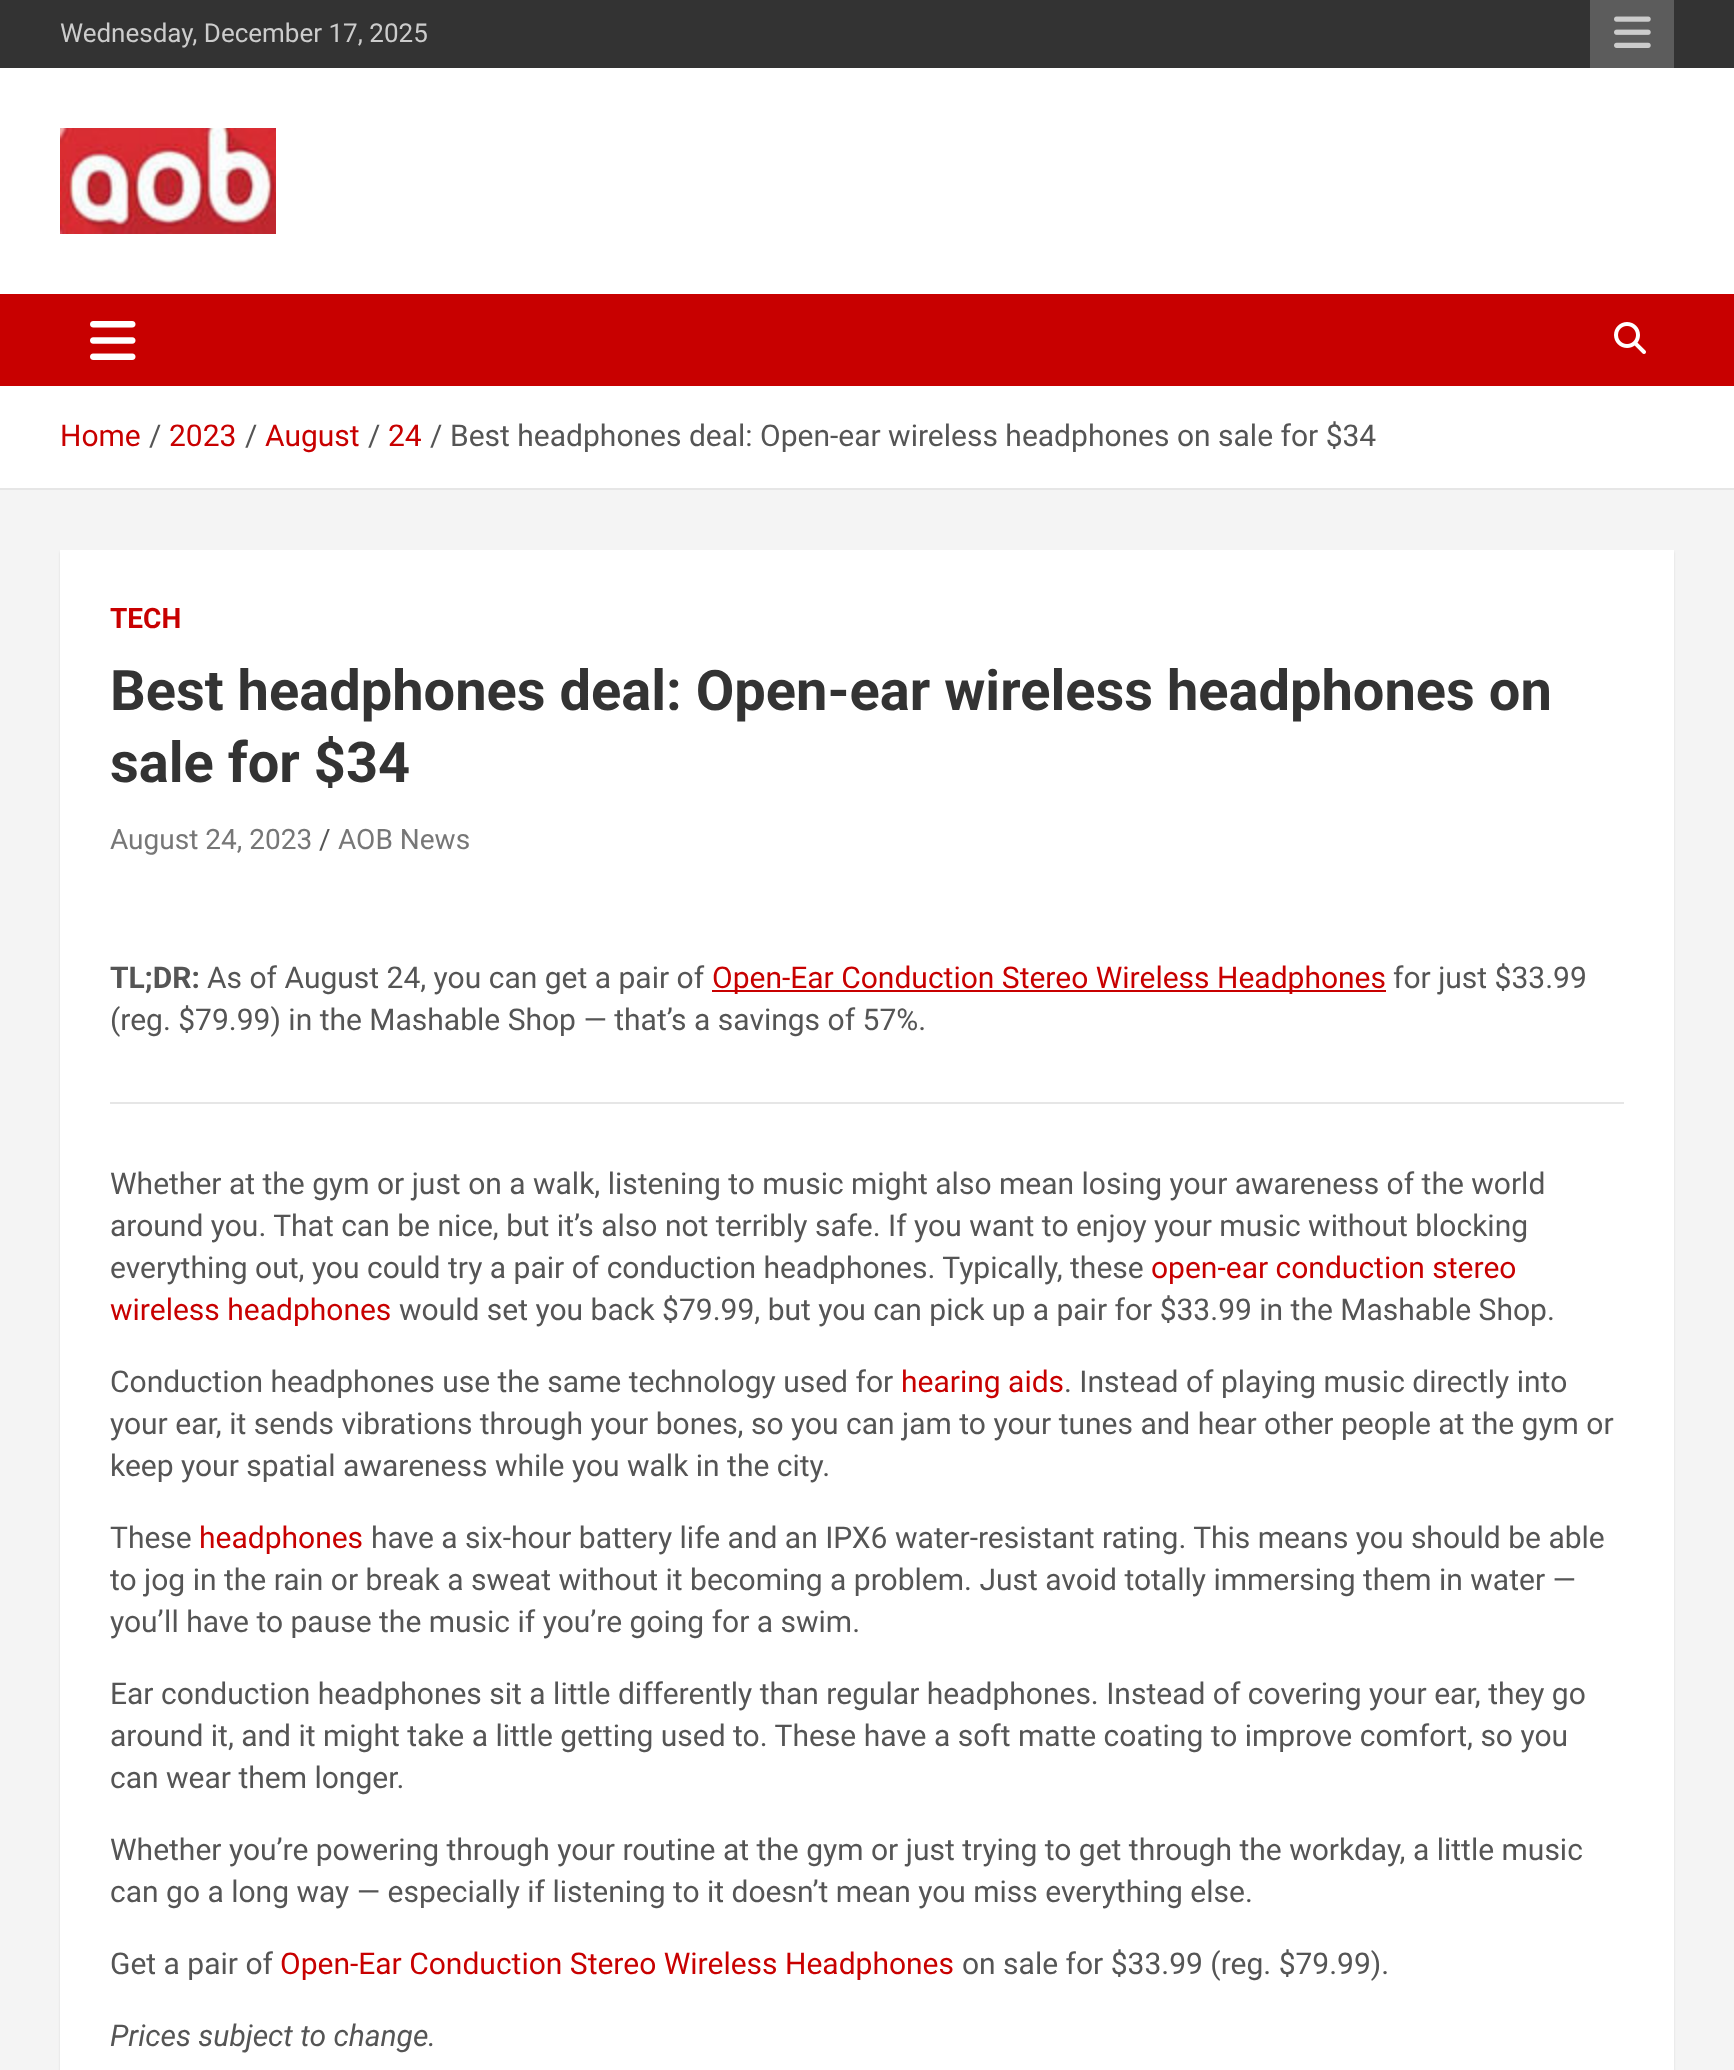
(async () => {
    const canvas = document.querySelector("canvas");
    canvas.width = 1734;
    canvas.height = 2070;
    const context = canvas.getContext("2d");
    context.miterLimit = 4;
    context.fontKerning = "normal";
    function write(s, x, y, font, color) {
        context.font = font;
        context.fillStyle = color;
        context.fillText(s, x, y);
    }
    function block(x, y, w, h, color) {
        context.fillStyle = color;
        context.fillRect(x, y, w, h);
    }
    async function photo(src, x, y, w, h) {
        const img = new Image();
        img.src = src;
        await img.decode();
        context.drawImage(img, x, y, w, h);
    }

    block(0, 0, 1734, 2070, "rgb(244, 244, 244)");
    block(0, 0, 1734, 68, "rgb(51, 51, 51)");
    write("Wednesday, December 17, 2025", 60, 42, "26px Roboto", "rgb(204, 204, 204)");
    block(1590, 0, 84, 68, "rgb(92, 92, 92)");
    await photo("media/1.png", 1614, 16, 37, 32);
    block(0, 68, 1734, 226, "rgb(255, 255, 255)");
    await photo("media/2.png", 60, 128, 216, 106);
    block(0, 294, 1734, 92, "rgb(200, 0, 0)");
    await photo("media/3.png", 90, 321, 46, 39);
    await photo("media/4.png", 1614, 322, 32, 32);
    block(0, 386, 1734, 102, "rgb(255, 255, 255)");
    block(0, 488, 1734, 2, "rgb(230, 230, 230)");
    write("Home", 60, 446, "30px Roboto", "rgb(200, 0, 0)");
    write("/", 149, 446, "30px Roboto", "rgb(85, 85, 85)");
    write("2023", 169, 446, "30px Roboto", "rgb(200, 0, 0)");
    write("/", 245, 446, "30px Roboto", "rgb(85, 85, 85)");
    write("August", 265, 446, "30px Roboto", "rgb(200, 0, 0)");
    write("/", 368, 446, "30px Roboto", "rgb(85, 85, 85)");
    write("24", 388, 446, "30px Roboto", "rgb(200, 0, 0)");
    write("/", 430, 446, "30px Roboto", "rgb(85, 85, 85)");
    write("Best headphones deal: Open-ear wireless headphones on sale for $34", 450, 446, "30px Roboto", "rgb(85, 85, 85)");
    context.fillStyle = "rgba(0, 0, 0, 0.1)";
    context.filter = "blur(1px)";
    context.beginPath();
    context.rect(60, 552, 1614, 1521);
    context.fill();
    context.filter = "none";
    block(60, 550, 1614, 1520, "rgb(255, 255, 255)");
    write("TECH", 110, 628, "bold 28px Roboto", "rgb(200, 0, 0)");
    write("Best headphones deal: Open-ear wireless headphones on", 110, 710, "bold 56px Roboto", "rgb(51, 51, 51)");
    write("sale for $34", 110, 782, "bold 56px Roboto", "rgb(51, 51, 51)");
    write("August 24, 2023", 110, 849, "28px Roboto", "rgb(119, 119, 119)");
    write("/", 319, 849, "28px Roboto", "rgb(85, 85, 85)");
    write("AOB News", 338, 849, "28px Roboto", "rgb(119, 119, 119)");
    write("TL;DR:", 110, 988, "bold 30px Roboto", "rgb(85, 85, 85)");
    write("As of August 24, you can get a pair of", 207, 988, "30px Roboto", "rgb(85, 85, 85)");
    block(712, 990, 674, 2, "rgb(200, 0, 0)");
    write("Open-Ear Conduction Stereo Wireless Headphones", 712, 988, "30px Roboto", "rgb(200, 0, 0)");
    write("for just $33.99", 1393, 988, "30px Roboto", "rgb(85, 85, 85)");
    write("(reg. $79.99) in the Mashable Shop — that’s a savings of 57%.", 110, 1030, "30px Roboto", "rgb(85, 85, 85)");
    block(110, 1102, 1514, 2, "rgb(230, 230, 230)");
    write("Whether at the gym or just on a walk, listening to music might also mean losing your awareness of the world", 110, 1194, "30px Roboto", "rgb(85, 85, 85)");
    write("around you. That can be nice, but it’s also not terribly safe. If you want to enjoy your music without blocking", 110, 1236, "30px Roboto", "rgb(85, 85, 85)");
    write("everything out, you could try a pair of conduction headphones. Typically, these", 110, 1278, "30px Roboto", "rgb(85, 85, 85)");
    write("open-ear conduction stereo", 1151, 1278, "30px Roboto", "rgb(200, 0, 0)");
    write("wireless headphones", 110, 1320, "30px Roboto", "rgb(200, 0, 0)");
    write("would set you back $79.99, but you can pick up a pair for $33.99 in the Mashable Shop.", 399, 1320, "30px Roboto", "rgb(85, 85, 85)");
    write("Conduction headphones use the same technology used for", 110, 1392, "30px Roboto", "rgb(85, 85, 85)");
    write("hearing aids", 901, 1392, "30px Roboto", "rgb(200, 0, 0)");
    write(". Instead of playing music directly into", 1064, 1392, "30px Roboto", "rgb(85, 85, 85)");
    write("your ear, it sends vibrations through your bones, so you can jam to your tunes and hear other people at the gym or", 110, 1434, "30px Roboto", "rgb(85, 85, 85)");
    write("keep your spatial awareness while you walk in the city.", 110, 1476, "30px Roboto", "rgb(85, 85, 85)");
    write("These", 110, 1548, "30px Roboto", "rgb(85, 85, 85)");
    write("headphones", 199, 1548, "30px Roboto", "rgb(200, 0, 0)");
    write("have a six-hour battery life and an IPX6 water-resistant rating. This means you should be able", 371, 1548, "30px Roboto", "rgb(85, 85, 85)");
    write("to jog in the rain or break a sweat without it becoming a problem. Just avoid totally immersing them in water —", 110, 1590, "30px Roboto", "rgb(85, 85, 85)");
    write("you’ll have to pause the music if you’re going for a swim.", 110, 1632, "30px Roboto", "rgb(85, 85, 85)");
    write("Ear conduction headphones sit a little differently than regular headphones. Instead of covering your ear, they go", 110, 1704, "30px Roboto", "rgb(85, 85, 85)");
    write("around it, and it might take a little getting used to. These have a soft matte coating to improve comfort, so you", 110, 1746, "30px Roboto", "rgb(85, 85, 85)");
    write("can wear them longer.", 110, 1788, "30px Roboto", "rgb(85, 85, 85)");
    write("Whether you’re powering through your routine at the gym or just trying to get through the workday, a little music", 110, 1860, "30px Roboto", "rgb(85, 85, 85)");
    write("can go a long way — especially if listening to it doesn’t mean you miss everything else.", 110, 1902, "30px Roboto", "rgb(85, 85, 85)");
    write("Get a pair of", 110, 1974, "30px Roboto", "rgb(85, 85, 85)");
    write("Open-Ear Conduction Stereo Wireless Headphones", 280, 1974, "30px Roboto", "rgb(200, 0, 0)");
    write("on sale for $33.99 (reg. $79.99).", 962, 1974, "30px Roboto", "rgb(85, 85, 85)");
    write("Prices subject to change.", 110, 2046, "italic 30px Roboto", "rgb(85, 85, 85)");
})();
